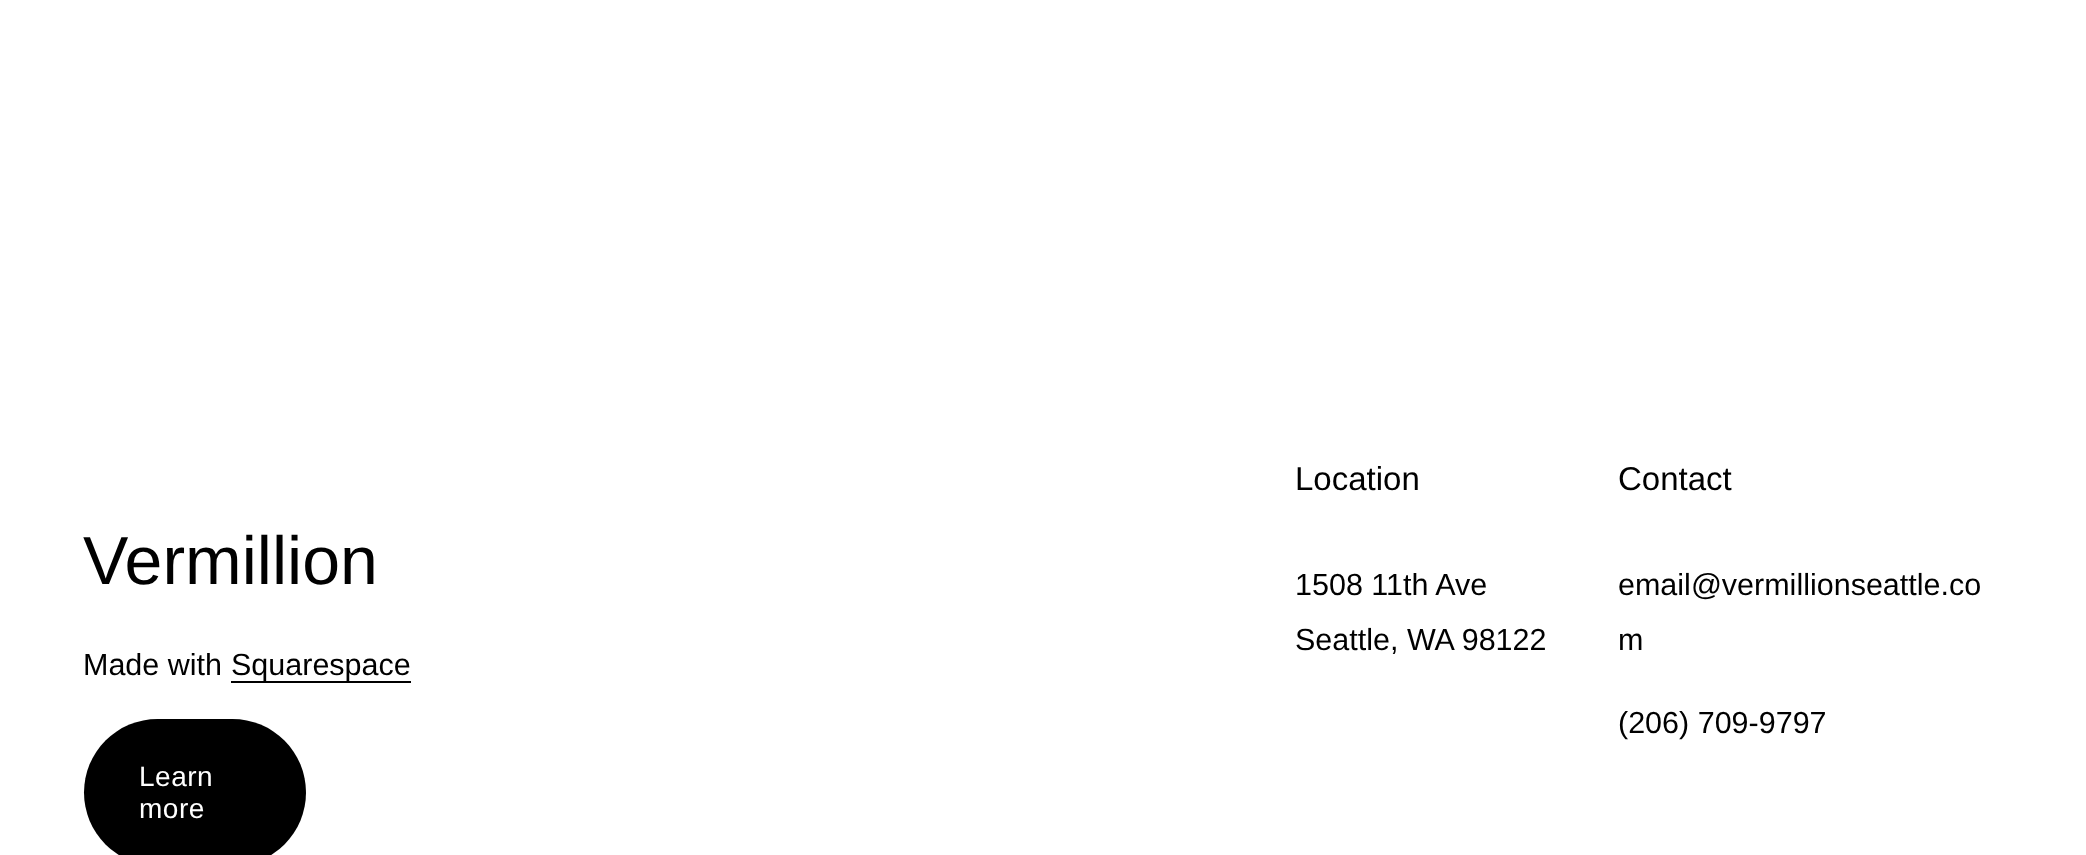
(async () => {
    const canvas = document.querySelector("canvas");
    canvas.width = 2086;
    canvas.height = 855;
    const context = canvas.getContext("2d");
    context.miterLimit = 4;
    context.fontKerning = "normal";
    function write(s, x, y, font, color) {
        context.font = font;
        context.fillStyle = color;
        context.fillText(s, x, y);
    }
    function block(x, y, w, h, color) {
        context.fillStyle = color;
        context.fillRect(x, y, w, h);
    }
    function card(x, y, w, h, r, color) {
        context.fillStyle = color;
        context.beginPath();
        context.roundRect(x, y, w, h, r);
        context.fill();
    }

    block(0, 0, 2086, 855, "rgb(255, 255, 255)");
    write("Vermillion", 83, 584, "68px Liberation Sans", "rgb(0, 0, 0)");
    write("Location", 1295, 490, "33px Liberation Sans", "rgb(0, 0, 0)");
    write("1508 11th Ave", 1295, 595, "30.5px Liberation Sans", "rgb(0, 0, 0)");
    write("Seattle, WA 98122", 1295, 650, "30.5px Liberation Sans", "rgb(0, 0, 0)");
    write("Contact", 1618, 490, "33px Liberation Sans", "rgb(0, 0, 0)");
    write("email@vermillionseattle.co", 1618, 595, "30.5px Liberation Sans", "rgb(0, 0, 0)");
    write("m", 1618, 650, "30.5px Liberation Sans", "rgb(0, 0, 0)");
    write("(206) 709-9797", 1618, 733, "30.5px Liberation Sans", "rgb(0, 0, 0)");
    write("Made with", 83, 675, "30.5px Liberation Sans", "rgb(0, 0, 0)");
    block(231, 681, 180, 2, "rgb(0, 0, 0)");
    write("Squarespace", 231, 675, "30.5px Liberation Sans", "rgb(0, 0, 0)");
    card(84, 719, 222, 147, 73.5, "rgb(0, 0, 0)");
    context.letterSpacing = "0.5px";
    write("Learn", 139, 786, "28px Liberation Sans", "rgb(255, 255, 255)");
    write("more", 139, 818, "28px Liberation Sans", "rgb(255, 255, 255)");
})();
